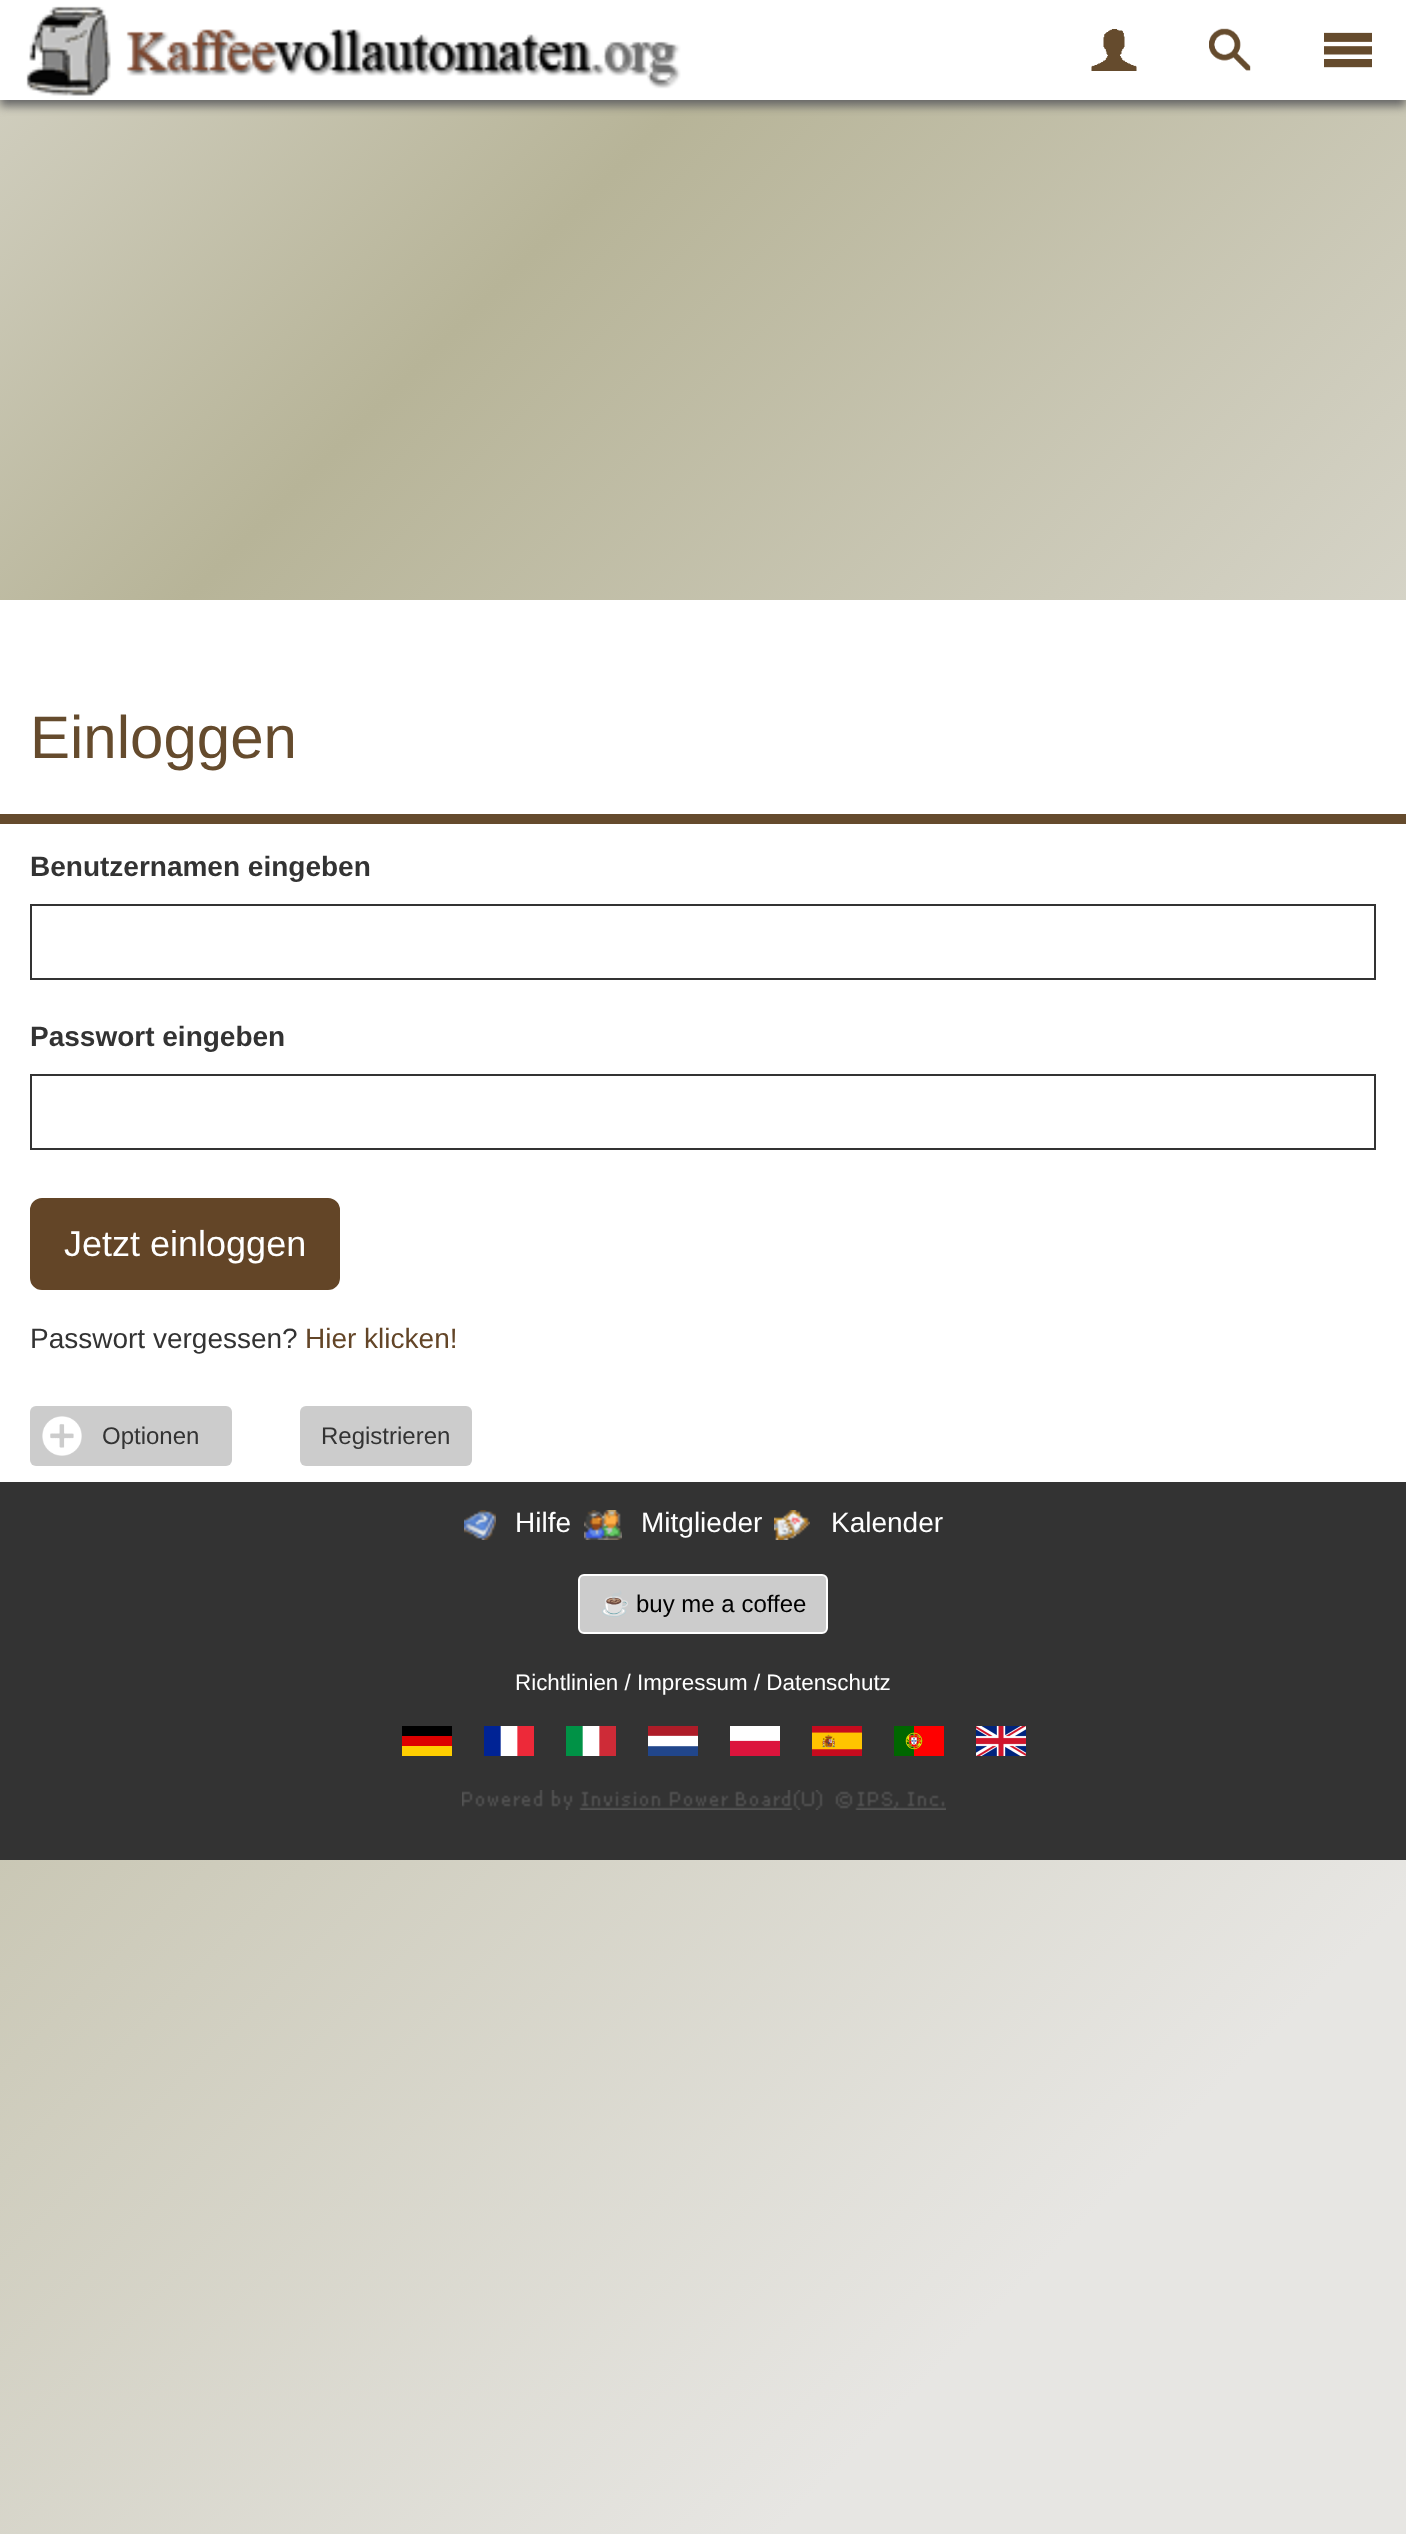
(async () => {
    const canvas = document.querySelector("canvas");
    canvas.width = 1406;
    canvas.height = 2534;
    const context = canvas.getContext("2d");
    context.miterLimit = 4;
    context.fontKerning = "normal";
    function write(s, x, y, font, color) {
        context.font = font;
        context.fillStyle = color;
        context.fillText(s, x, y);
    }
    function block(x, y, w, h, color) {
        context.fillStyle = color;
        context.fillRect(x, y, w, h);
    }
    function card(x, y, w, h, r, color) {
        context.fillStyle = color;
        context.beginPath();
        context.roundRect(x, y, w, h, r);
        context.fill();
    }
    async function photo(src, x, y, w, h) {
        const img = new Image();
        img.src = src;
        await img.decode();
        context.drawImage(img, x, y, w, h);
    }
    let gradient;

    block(0, 0, 1406, 2534, "rgb(255, 255, 255)");
    gradient = context.createLinearGradient(-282, 282, 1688, 2252);
    gradient.addColorStop(0, "rgb(211, 209, 195)");
    gradient.addColorStop(0.24, "rgb(183, 180, 152)");
    gradient.addColorStop(0.84, "rgb(231, 230, 227)");
    context.fillStyle = gradient;
    context.fillRect(0, 1860, 1406, 674);
    gradient = context.createLinearGradient(-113, 114, 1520, 1747);
    gradient.addColorStop(0, "rgb(211, 209, 195)");
    gradient.addColorStop(0.24, "rgb(183, 180, 152)");
    gradient.addColorStop(0.84, "rgb(231, 230, 227)");
    context.fillStyle = gradient;
    context.fillRect(0, 100, 1406, 500);
    context.fillStyle = "rgb(102, 102, 102)";
    context.filter = "blur(5px)";
    context.beginPath();
    context.rect(0, 6, 1406, 100);
    context.fill();
    context.filter = "none";
    block(0, 0, 1406, 100, "rgb(255, 255, 255)");
    await photo("media/1.png", 26, 6, 655, 90);
    await photo("media/2.png", 1091, 29, 46, 42);
    await photo("media/3.png", 1209, 28, 42, 43);
    await photo("media/4.png", 1324, 32, 48, 36);
    block(0, 814, 1406, 10, "rgb(101, 75, 45)");
    write("Einloggen", 30, 758, "60px Liberation Sans", "rgb(101, 75, 45)");
    write("Benutzernamen eingeben", 30, 876, "bold 28px Liberation Sans", "rgb(51, 51, 51)");
    context.strokeStyle = "rgb(51, 51, 51)";
    context.lineWidth = 2;
    context.strokeRect(31, 905, 1344, 74);
    write("Passwort eingeben", 30, 1046, "bold 28px Liberation Sans", "rgb(51, 51, 51)");
    context.strokeRect(31, 1075, 1344, 74);
    context.fillStyle = "rgb(99, 69, 39)";
    context.beginPath();
    context.roundRect(31, 1199, 308, 90, 11);
    context.fill();
    context.strokeStyle = "rgb(99, 69, 39)";
    context.stroke();
    write("Jetzt einloggen", 64, 1256, "36px Liberation Sans", "rgb(255, 255, 255)");
    write("Passwort vergessen?", 30, 1348, "28px Liberation Sans", "rgb(51, 51, 51)");
    write("Hier klicken!", 305, 1348, "28px Liberation Sans", "rgb(99, 69, 39)");
    card(30, 1406, 202, 60, 6, "rgb(204, 204, 204)");
    await photo("media/5.png", 42, 1416, 40, 40);
    write("Optionen", 102, 1444, "24px Liberation Sans", "rgb(51, 51, 51)");
    card(300, 1406, 172, 60, 6, "rgb(204, 204, 204)");
    write("Registrieren", 321, 1444, "24px Liberation Sans", "rgb(51, 51, 51)");
    block(0, 1482, 1406, 378, "rgb(51, 51, 51)");
    await photo("media/6.png", 464, 1510, 32, 30);
    write("Hilfe", 515, 1532, "28px Liberation Sans", "rgb(255, 255, 255)");
    await photo("media/7.png", 584, 1510, 38, 30);
    write("Mitglieder", 641, 1532, "28px Liberation Sans", "rgb(255, 255, 255)");
    await photo("media/8.png", 774, 1510, 36, 30);
    write("Kalender", 831, 1532, "28px Liberation Sans", "rgb(255, 255, 255)");
    context.fillStyle = "rgb(204, 204, 204)";
    context.beginPath();
    context.roundRect(579, 1575, 248, 58, 5);
    context.fill();
    context.strokeStyle = "rgb(255, 255, 255)";
    context.stroke();
    write("☕", 600, 1612, "24px Noto Color Emoji", "rgb(0, 0, 0)");
    write("buy me a coffee", 636, 1612, "24px Liberation Sans", "rgb(0, 0, 0)");
    write("Richtlinien / Impressum / Datenschutz", 515, 1690, "22.4px Liberation Sans", "rgb(255, 255, 255)");
    await photo("media/9.png", 402, 1726, 50, 30);
    await photo("media/10.png", 484, 1726, 50, 30);
    await photo("media/11.png", 566, 1726, 50, 30);
    await photo("media/12.png", 648, 1726, 50, 30);
    await photo("media/13.png", 730, 1726, 50, 30);
    await photo("media/14.png", 812, 1726, 50, 30);
    await photo("media/15.png", 894, 1726, 50, 30);
    await photo("media/16.png", 976, 1726, 50, 30);
    await photo("media/17.png", 462, 1790, 484, 20);
})();
